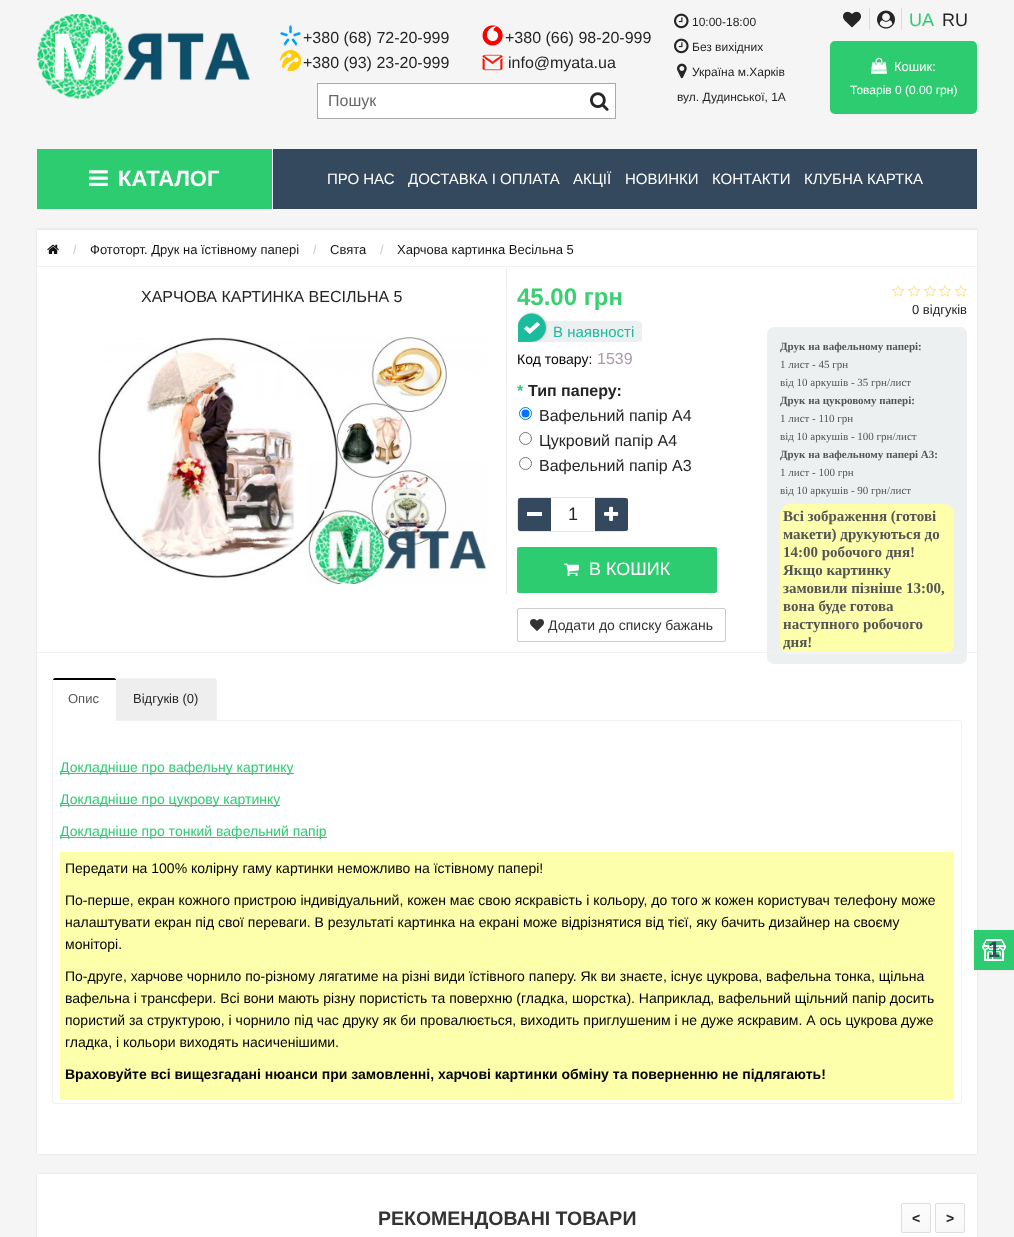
(async () => {
    const canvas = document.querySelector("canvas");
    canvas.width = 1014;
    canvas.height = 1237;
    const context = canvas.getContext("2d");
    context.miterLimit = 4;
    context.fontKerning = "normal";
    function write(s, x, y, font, color) {
        context.font = font;
        context.fillStyle = color;
        context.fillText(s, x, y);
    }
    function block(x, y, w, h, color) {
        context.fillStyle = color;
        context.fillRect(x, y, w, h);
    }
    function card(x, y, w, h, r, color) {
        context.fillStyle = color;
        context.beginPath();
        context.roundRect(x, y, w, h, r);
        context.fill();
    }
    async function photo(src, x, y, w, h) {
        const img = new Image();
        img.src = src;
        await img.decode();
        context.drawImage(img, x, y, w, h);
    }
    let gradient;

    block(0, 0, 1014, 1237, "rgb(245, 245, 245)");
    await photo("media/1.png", 37, 14, 213, 85);
    await photo("media/2.png", 280, 25, 21, 21);
    write("+380 (68) 72-20-999", 303, 43, "16px Liberation Sans", "rgb(37, 37, 37)");
    await photo("media/3.png", 280, 50, 21, 21);
    write("+380 (93) 23-20-999", 303, 68, "16px Liberation Sans", "rgb(37, 37, 37)");
    await photo("media/4.png", 482, 25, 21, 21);
    write("+380 (66) 98-20-999", 505, 43, "16px Liberation Sans", "rgb(37, 37, 37)");
    await photo("media/5.png", 482, 53, 21, 19);
    write("info@myata.ua", 508, 68, "16px Liberation Sans", "rgb(37, 37, 37)");
    context.strokeStyle = "rgb(170, 170, 170)";
    context.strokeRect(317.5, 83.5, 298, 35);
    card(318, 84, 297, 34, 2, "rgb(255, 255, 255)");
    write("Пошук", 328, 106, "16px Liberation Sans", "rgb(102, 102, 102)");
    await photo("media/6.png", 590, 92, 19, 19);
    await photo("media/7.png", 674, 13, 15, 16);
    write("10:00-18:00", 692, 26, "12px Liberation Sans", "rgb(37, 37, 37)");
    await photo("media/7.png", 674, 38, 15, 16);
    write("Без вихідних", 692, 51, "12px Liberation Sans", "rgb(37, 37, 37)");
    await photo("media/8.png", 677, 63, 10, 16);
    write("Україна м.Харків", 692, 76, "12px Liberation Sans", "rgb(37, 37, 37)");
    write("вул. Дудинської, 1А", 677, 101, "12px Liberation Sans", "rgb(37, 37, 37)");
    await photo("media/9.png", 843, 11, 18, 17);
    block(869, 8, 1, 22, "rgb(218, 220, 220)");
    await photo("media/10.png", 877, 10, 18, 19);
    block(901, 8, 1, 22, "rgb(218, 220, 220)");
    write("UA", 909, 26, "18px Liberation Sans", "rgb(46, 204, 113)");
    write("RU", 942, 26, "18px Liberation Sans", "rgb(37, 37, 37)");
    card(830, 41, 147, 73, 5, "rgb(46, 204, 113)");
    await photo("media/11.png", 871, 57, 16, 17);
    write("Кошик:", 894, 71, "13px Liberation Sans", "rgb(255, 255, 255)");
    write("Товарів 0 (0.00 грн)", 850, 94, "12px Liberation Sans", "rgb(255, 255, 255)");
    block(273, 149, 704, 60, "rgb(52, 73, 94)");
    block(37, 149, 235, 60, "rgb(46, 204, 113)");
    await photo("media/12.png", 89, 170, 19, 16);
    write("КАТАЛОГ", 118, 186, "bold 22px Liberation Sans", "rgb(255, 255, 255)");
    block(272, 149, 1, 60, "rgb(255, 255, 255)");
    write("ПРО НАС", 327, 184, "15px Liberation Sans", "rgb(255, 255, 255)");
    write("ДОСТАВКА І ОПЛАТА", 408, 184, "15px Liberation Sans", "rgb(255, 255, 255)");
    write("АКЦІЇ", 573, 184, "15px Liberation Sans", "rgb(255, 255, 255)");
    write("НОВИНКИ", 625, 184, "15px Liberation Sans", "rgb(255, 255, 255)");
    write("КОНТАКТИ", 712, 184, "15px Liberation Sans", "rgb(255, 255, 255)");
    write("КЛУБНА КАРТКА", 804, 184, "15px Liberation Sans", "rgb(255, 255, 255)");
    context.fillStyle = "rgba(0, 0, 0, 0.1)";
    context.filter = "blur(1px)";
    context.beginPath();
    context.rect(37, 229, 940, 925);
    context.fill();
    context.filter = "none";
    block(37, 230, 940, 924, "rgb(255, 255, 255)");
    block(37, 229, 940, 1, "rgb(234, 234, 234)");
    await photo("media/13.png", 47, 244, 12, 10);
    write("/", 73, 254, "13px Liberation Sans", "rgb(204, 204, 204)");
    write("Фототорт. Друк на їстівному папері", 90, 254, "13px Liberation Sans", "rgb(20, 20, 20)");
    write("/", 313, 254, "13px Liberation Sans", "rgb(204, 204, 204)");
    write("Свята", 330, 254, "13px Liberation Sans", "rgb(20, 20, 20)");
    write("/", 380, 254, "13px Liberation Sans", "rgb(204, 204, 204)");
    write("Харчова картинка Весільна 5", 397, 254, "13px Liberation Sans", "rgb(20, 20, 20)");
    block(37, 266, 940, 1, "rgb(242, 242, 242)");
    block(506, 267, 1, 327, "rgb(238, 238, 238)");
    write("ХАРЧОВА КАРТИНКА ВЕСІЛЬНА 5", 141, 302, "16px Liberation Sans", "rgb(37, 37, 37)");
    await photo("media/14.png", 98, 337, 389, 247);
    write("45.00 грн", 517, 305, "bold 24px Liberation Sans", "rgb(58, 208, 113)");
    card(518, 321, 124, 21, 4, "rgb(236, 240, 241)");
    await photo("media/15.png", 518, 312, 30, 30);
    write("В наявності", 553, 337, "15px Liberation Sans", "rgb(26, 188, 156)");
    write("Код товару:", 517, 364, "14px Liberation Sans", "rgb(0, 0, 0)");
    write("1539", 597, 364, "16px Liberation Sans", "rgb(170, 153, 170)");
    await photo("media/16.png", 892, 285, 12, 12);
    await photo("media/16.png", 908, 285, 12, 12);
    await photo("media/16.png", 924, 285, 12, 12);
    await photo("media/16.png", 939, 285, 12, 12);
    await photo("media/16.png", 955, 285, 12, 12);
    write("0 відгуків", 912, 314, "13px Liberation Sans", "rgb(37, 37, 37)");
    card(767, 327, 200, 337, 7, "rgb(236, 240, 241)");
    write("Друк на вафельному папері:", 780, 350, "bold 11px Liberation Serif", "rgb(85, 85, 85)");
    write("1 лист - 45 грн", 780, 368, "11px Liberation Serif", "rgb(85, 85, 85)");
    write("від 10 аркушів - 35 грн/лист", 780, 386, "11px Liberation Serif", "rgb(85, 85, 85)");
    write("Друк на цукровому папері:", 780, 404, "bold 11px Liberation Serif", "rgb(85, 85, 85)");
    write("1 лист - 110 грн", 780, 422, "11px Liberation Serif", "rgb(85, 85, 85)");
    write("від 10 аркушів - 100 грн/лист", 780, 440, "11px Liberation Serif", "rgb(85, 85, 85)");
    write("Друк на вафельному папері А3:", 780, 458, "bold 11px Liberation Serif", "rgb(85, 85, 85)");
    write("1 лист - 100 грн", 780, 476, "11px Liberation Serif", "rgb(85, 85, 85)");
    write("від 10 аркушів - 90 грн/лист", 780, 494, "11px Liberation Serif", "rgb(85, 85, 85)");
    card(780, 504, 174, 150, 10, "rgb(253, 255, 171)");
    write("Всі зображення (готові", 783, 521, "bold 15px Liberation Serif", "rgb(85, 85, 85)");
    write("макети) друкуються до", 783, 539, "bold 15px Liberation Serif", "rgb(85, 85, 85)");
    write("14:00 робочого дня!", 783, 557, "bold 15px Liberation Serif", "rgb(85, 85, 85)");
    write("Якщо картинку", 783, 575, "bold 15px Liberation Serif", "rgb(85, 85, 85)");
    write("замовили пізніше 13:00,", 783, 593, "bold 15px Liberation Serif", "rgb(85, 85, 85)");
    write("вона буде готова", 783, 611, "bold 15px Liberation Serif", "rgb(85, 85, 85)");
    write("наступного робочого", 783, 629, "bold 15px Liberation Serif", "rgb(85, 85, 85)");
    write("дня!", 783, 647, "bold 15px Liberation Serif", "rgb(85, 85, 85)");
    write("*", 517, 396, "bold 16px Liberation Sans", "rgb(46, 204, 113)");
    write("Тип паперу:", 528, 396, "bold 16px Liberation Sans", "rgb(37, 37, 37)");
    context.beginPath();
    context.arc(525.5, 413.5, 6, 0, Math.PI * 2);
    context.strokeStyle = "rgb(0, 117, 255)";
    context.stroke();
    context.fillStyle = "rgb(0, 117, 255)";
    context.beginPath();
    context.arc(525.5, 413.5, 4, 0, Math.PI * 2);
    context.fill();
    write("Вафельний папір А4", 539, 421, "16px Liberation Sans", "rgb(37, 37, 37)");
    context.beginPath();
    context.arc(525.5, 438.5, 6, 0, Math.PI * 2);
    context.strokeStyle = "rgb(118, 118, 118)";
    context.stroke();
    write("Цукровий папір А4", 539, 446, "16px Liberation Sans", "rgb(37, 37, 37)");
    context.beginPath();
    context.arc(525.5, 463.5, 6, 0, Math.PI * 2);
    context.stroke();
    write("Вафельний папір А3", 539, 471, "16px Liberation Sans", "rgb(37, 37, 37)");
    context.beginPath();
    context.roundRect(517.5, 497.5, 109, 34, 4.5);
    context.strokeStyle = "rgb(229, 229, 229)";
    context.stroke();
    context.fillStyle = "rgb(52, 73, 94)";
    context.beginPath();
    context.roundRect(518, 498, 33, 33, [2, 0, 0, 2]);
    context.fill();
    block(527, 512, 15, 4, "rgb(255, 255, 255)");
    context.fillStyle = "rgb(52, 73, 94)";
    context.beginPath();
    context.roundRect(595, 498, 33, 33, [0, 2, 2, 0]);
    context.fill();
    await photo("media/17.png", 604, 506, 15, 15);
    write("1", 568, 520, "18px Liberation Sans", "rgb(37, 37, 37)");
    card(517, 547, 200, 46, 2, "rgb(46, 204, 113)");
    await photo("media/18.png", 564, 563, 15, 14);
    write("В КОШИК", 589, 575, "18px Liberation Sans", "rgb(255, 255, 255)");
    context.beginPath();
    context.roundRect(517.5, 608.5, 208, 33, 1.5);
    context.strokeStyle = "rgb(204, 204, 204)";
    context.stroke();
    await photo("media/19.png", 530, 619, 14, 12);
    write("Додати до списку бажань", 548, 630, "14px Liberation Sans", "rgb(51, 51, 51)");
    block(37, 652, 940, 1, "rgb(242, 242, 242)");
    block(216, 680, 1, 40, "rgb(242, 242, 242)");
    block(52, 680, 1, 40, "rgb(242, 242, 242)");
    context.beginPath();
    context.roundRect(52.5, 720.5, 909, 383, [0, 2.5, 2.5, 2.5]);
    context.strokeStyle = "rgb(242, 242, 242)";
    context.stroke();
    context.fillStyle = "rgb(255, 255, 255)";
    context.beginPath();
    context.roundRect(53, 678, 63, 43, [2, 2, 0, 0]);
    context.fill();
    context.fillStyle = "rgb(0, 0, 0)";
    context.beginPath();
    context.moveTo(55, 678);
    context.bezierCurveTo(54, 678, 53, 679, 53, 680);
    context.lineTo(116, 680);
    context.bezierCurveTo(116, 679, 115, 678, 114, 678);
    context.closePath();
    context.fill();
    write("Опис", 68, 703, "13px Liberation Sans", "rgb(85, 85, 85)");
    block(117, 679, 99, 41, "rgb(238, 238, 238)");
    block(116, 678, 100, 1, "rgb(242, 242, 242)");
    block(116, 678, 1, 43, "rgb(242, 242, 242)");
    write("Відгуків (0)", 133, 703, "13px Liberation Sans", "rgb(37, 37, 37)");
    block(60, 773, 234, 1, "rgb(46, 204, 113)");
    write("Докладніше про вафельну картинку", 60, 772, "14px Liberation Sans", "rgb(46, 204, 113)");
    block(60, 805, 220, 1, "rgb(46, 204, 113)");
    write("Докладніше про цукрову картинку", 60, 804, "14px Liberation Sans", "rgb(46, 204, 113)");
    block(60, 837, 267, 1, "rgb(46, 204, 113)");
    write("Докладніше про тонкий вафельний папір", 60, 836, "14px Liberation Sans", "rgb(46, 204, 113)");
    block(60, 852, 894, 248, "rgb(253, 255, 171)");
    write("Передати на 100% колірну гаму картинки неможливо на їстівному папері!", 65, 873, "14px Liberation Sans", "rgb(0, 0, 0)");
    write("По-перше, екран кожного пристрою індивідуальний, кожен має свою яскравість і кольору, до того ж кожен користувач телефону може", 65, 905, "14px Liberation Sans", "rgb(0, 0, 0)");
    write("налаштувати екран під свої переваги. В результаті картинка на екрані може відрізнятися від тієї, яку бачить дизайнер на своєму", 65, 927, "14px Liberation Sans", "rgb(0, 0, 0)");
    write("моніторі.", 65, 949, "14px Liberation Sans", "rgb(0, 0, 0)");
    write("По-друге, харчове чорнило по-різному лягатиме на різні види їстівного паперу. Як ви знаєте, існує цукрова, вафельна тонка, щільна", 65, 981, "14px Liberation Sans", "rgb(0, 0, 0)");
    write("вафельна і трансфери. Всі вони мають різну пористість та поверхню (гладка, шорстка). Наприклад, вафельний щільний папір досить", 65, 1003, "14px Liberation Sans", "rgb(0, 0, 0)");
    write("пористий за структурою, і чорнило під час друку як би провалюється, виходить приглушеним і не дуже яскравим. А ось цукрова дуже", 65, 1025, "14px Liberation Sans", "rgb(0, 0, 0)");
    write("гладка, і кольори виходять насиченішими.", 65, 1047, "14px Liberation Sans", "rgb(0, 0, 0)");
    write("Враховуйте всі вищезгадані нюанси при замовленні, харчові картинки обміну та поверненню не підлягають!", 65, 1079, "bold 14px Liberation Sans", "rgb(0, 0, 0)");
    context.fillStyle = "rgba(0, 0, 0, 0.1)";
    context.filter = "blur(1px)";
    context.beginPath();
    context.rect(37, 1174, 940, 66);
    context.fill();
    context.filter = "none";
    block(37, 1174, 940, 63, "rgb(255, 255, 255)");
    write("РЕКОМЕНДОВАНІ ТОВАРИ", 378, 1225, "bold 19.5px Liberation Sans", "rgb(51, 51, 51)");
    context.save();
    context.beginPath();
    context.roundRect(901, 1203, 30, 30, 2);
    context.clip();
    gradient = context.createLinearGradient(916, 1204, 916, 1232);
    gradient.addColorStop(0, "rgb(253, 253, 253)");
    gradient.addColorStop(1, "rgb(248, 248, 248)");
    context.fillStyle = gradient;
    context.fillRect(901, 1204, 30, 28);
    context.restore();
    context.beginPath();
    context.roundRect(901.5, 1203.5, 29, 29, 1.5);
    context.strokeStyle = "rgb(222, 222, 222)";
    context.stroke();
    write("<", 912, 1223, "bold 14px Liberation Sans", "rgb(37, 37, 37)");
    context.save();
    context.beginPath();
    context.roundRect(935, 1203, 30, 30, 2);
    context.clip();
    gradient = context.createLinearGradient(950, 1204, 950, 1232);
    gradient.addColorStop(0, "rgb(253, 253, 253)");
    gradient.addColorStop(1, "rgb(248, 248, 248)");
    context.fillStyle = gradient;
    context.fillRect(935, 1204, 30, 28);
    context.restore();
    context.beginPath();
    context.roundRect(935.5, 1203.5, 29, 29, 1.5);
    context.stroke();
    write(">", 946, 1223, "bold 14px Liberation Sans", "rgb(37, 37, 37)");
    block(974, 930, 40, 40, "rgb(46, 204, 113)");
    await photo("media/20.png", 982, 939, 24, 22);
    write("1", 988, 957, "bold 22px Liberation Sans", "rgb(52, 73, 94)");
})();
